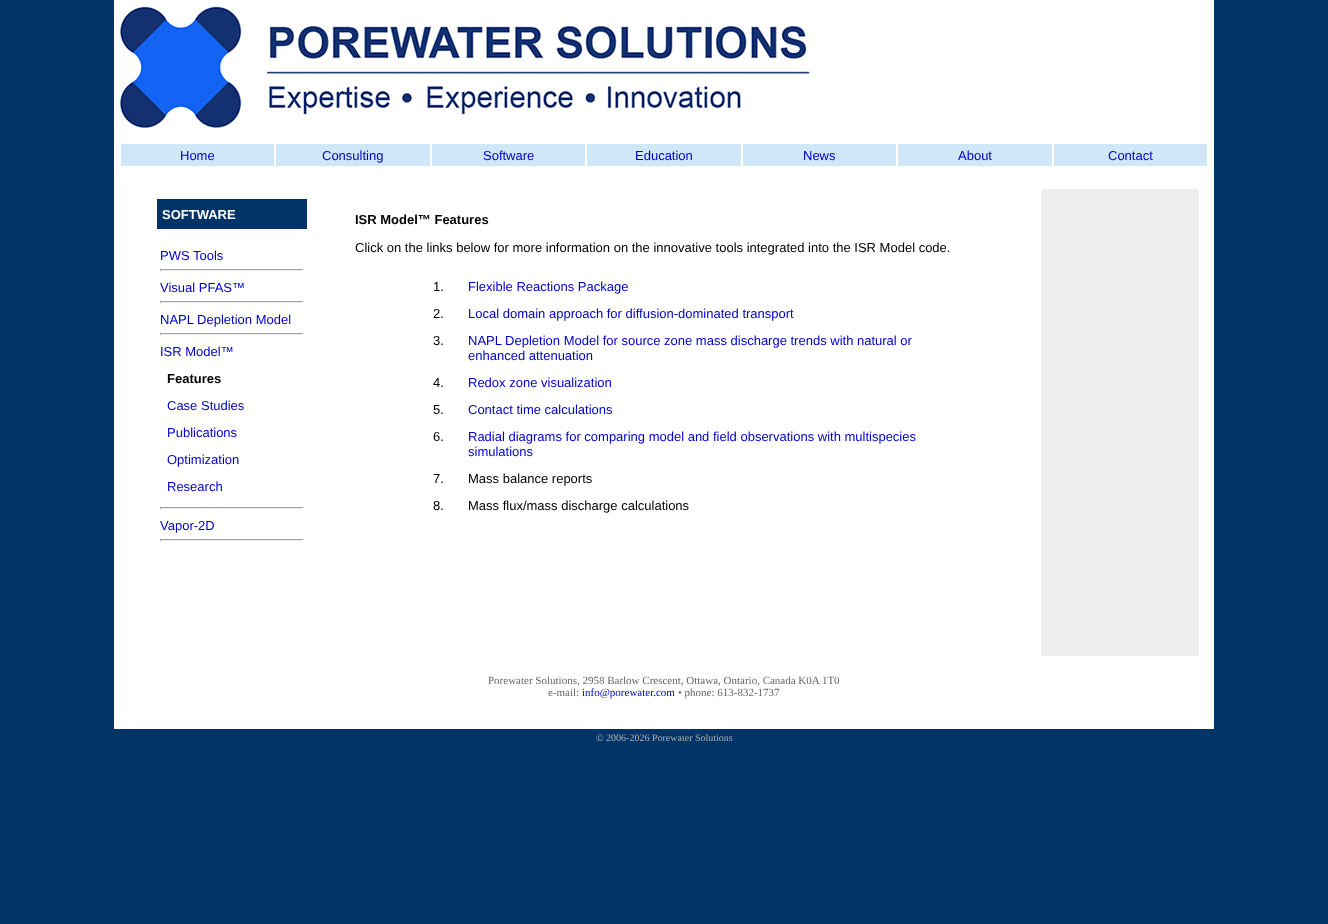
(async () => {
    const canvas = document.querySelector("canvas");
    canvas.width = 1328;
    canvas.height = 924;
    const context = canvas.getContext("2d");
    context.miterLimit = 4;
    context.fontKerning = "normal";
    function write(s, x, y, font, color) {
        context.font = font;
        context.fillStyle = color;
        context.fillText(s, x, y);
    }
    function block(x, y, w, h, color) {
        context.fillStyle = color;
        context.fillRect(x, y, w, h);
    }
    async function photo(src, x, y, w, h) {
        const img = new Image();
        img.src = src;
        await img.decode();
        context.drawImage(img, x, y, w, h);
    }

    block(0, 0, 1328, 924, "rgb(0, 51, 102)");
    block(114, 0, 1100, 729, "rgb(255, 255, 255)");
    await photo("media/1.png", 120, 6, 690, 122);
    block(121, 144, 153, 22, "rgb(207, 231, 248)");
    write("Home", 180, 160, "13px Liberation Sans", "rgb(0, 0, 204)");
    block(276, 144, 154, 22, "rgb(207, 231, 248)");
    write("Consulting", 322, 160, "13px Liberation Sans", "rgb(0, 0, 204)");
    block(432, 144, 153, 22, "rgb(207, 231, 248)");
    write("Software", 483, 160, "13px Liberation Sans", "rgb(0, 0, 204)");
    block(587, 144, 154, 22, "rgb(207, 231, 248)");
    write("Education", 635, 160, "13px Liberation Sans", "rgb(0, 0, 204)");
    block(743, 144, 153, 22, "rgb(207, 231, 248)");
    write("News", 803, 160, "13px Liberation Sans", "rgb(0, 0, 204)");
    block(898, 144, 154, 22, "rgb(207, 231, 248)");
    write("About", 958, 160, "13px Liberation Sans", "rgb(0, 0, 204)");
    block(1054, 144, 153, 22, "rgb(207, 231, 248)");
    write("Contact", 1108, 160, "13px Liberation Sans", "rgb(0, 0, 204)");
    block(157, 199, 150, 30, "rgb(0, 51, 102)");
    write("SOFTWARE", 162, 219, "bold 13px Liberation Sans", "rgb(255, 255, 255)");
    write("PWS Tools", 160, 260, "13px Liberation Sans", "rgb(0, 0, 204)");
    block(160, 269, 144, 1, "rgb(159, 159, 159)");
    block(303, 269, 1, 2, "rgb(238, 238, 238)");
    block(160, 270, 144, 1, "rgb(238, 238, 238)");
    block(160, 269, 1, 2, "rgb(159, 159, 159)");
    write("Visual PFAS™", 160, 292, "13px Liberation Sans", "rgb(0, 0, 204)");
    block(160, 301, 144, 1, "rgb(159, 159, 159)");
    block(303, 301, 1, 2, "rgb(238, 238, 238)");
    block(160, 302, 144, 1, "rgb(238, 238, 238)");
    block(160, 301, 1, 2, "rgb(159, 159, 159)");
    write("NAPL Depletion Model", 160, 324, "13px Liberation Sans", "rgb(0, 0, 204)");
    block(160, 333, 144, 1, "rgb(159, 159, 159)");
    block(303, 333, 1, 2, "rgb(238, 238, 238)");
    block(160, 334, 144, 1, "rgb(238, 238, 238)");
    block(160, 333, 1, 2, "rgb(159, 159, 159)");
    write("ISR Model™", 160, 356, "13px Liberation Sans", "rgb(0, 0, 204)");
    write("Features", 167, 383, "bold 13px Liberation Sans", "rgb(0, 0, 0)");
    write("Case Studies", 167, 410, "13px Liberation Sans", "rgb(0, 0, 204)");
    write("Publications", 167, 437, "13px Liberation Sans", "rgb(0, 0, 204)");
    write("Optimization", 167, 464, "13px Liberation Sans", "rgb(0, 0, 204)");
    write("Research", 167, 491, "13px Liberation Sans", "rgb(0, 0, 204)");
    block(160, 507, 144, 1, "rgb(159, 159, 159)");
    block(303, 507, 1, 2, "rgb(238, 238, 238)");
    block(160, 508, 144, 1, "rgb(238, 238, 238)");
    block(160, 507, 1, 2, "rgb(159, 159, 159)");
    write("Vapor-2D", 160, 530, "13px Liberation Sans", "rgb(0, 0, 204)");
    block(160, 539, 144, 1, "rgb(159, 159, 159)");
    block(303, 539, 1, 2, "rgb(238, 238, 238)");
    block(160, 540, 144, 1, "rgb(238, 238, 238)");
    block(160, 539, 1, 2, "rgb(159, 159, 159)");
    write("ISR Model™ Features", 355, 224, "bold 13px Liberation Sans", "rgb(0, 0, 0)");
    write("Click on the links below for more information on the innovative tools integrated into the ISR Model code.", 355, 252, "13px Liberation Sans", "rgb(0, 0, 0)");
    write("1.", 433, 291, "13px Liberation Sans", "rgb(0, 0, 0)");
    write("Flexible Reactions Package", 468, 291, "13px Liberation Sans", "rgb(0, 0, 204)");
    write("2.", 433, 318, "13px Liberation Sans", "rgb(0, 0, 0)");
    write("Local domain approach for diffusion-dominated transport", 468, 318, "13px Liberation Sans", "rgb(0, 0, 204)");
    write("3.", 433, 345, "13px Liberation Sans", "rgb(0, 0, 0)");
    write("NAPL Depletion Model for source zone mass discharge trends with natural or", 468, 345, "13px Liberation Sans", "rgb(0, 0, 204)");
    write("enhanced attenuation", 468, 360, "13px Liberation Sans", "rgb(0, 0, 204)");
    write("4.", 433, 387, "13px Liberation Sans", "rgb(0, 0, 0)");
    write("Redox zone visualization", 468, 387, "13px Liberation Sans", "rgb(0, 0, 204)");
    write("5.", 433, 414, "13px Liberation Sans", "rgb(0, 0, 0)");
    write("Contact time calculations", 468, 414, "13px Liberation Sans", "rgb(0, 0, 204)");
    write("6.", 433, 441, "13px Liberation Sans", "rgb(0, 0, 0)");
    write("Radial diagrams for comparing model and field observations with multispecies", 468, 441, "13px Liberation Sans", "rgb(0, 0, 204)");
    write("simulations", 468, 456, "13px Liberation Sans", "rgb(0, 0, 204)");
    write("7.", 433, 483, "13px Liberation Sans", "rgb(0, 0, 0)");
    write("Mass balance reports", 468, 483, "13px Liberation Sans", "rgb(0, 0, 0)");
    write("8.", 433, 510, "13px Liberation Sans", "rgb(0, 0, 0)");
    write("Mass flux/mass discharge calculations", 468, 510, "13px Liberation Sans", "rgb(0, 0, 0)");
    block(1041, 189, 158, 467, "rgb(238, 238, 238)");
    write("Porewater Solutions, 2958 Barlow Crescent, Ottawa, Ontario, Canada K0A 1T0", 488, 684, "11px Liberation Serif", "rgb(102, 102, 102)");
    write("e-mail:", 548, 696, "11px Liberation Serif", "rgb(102, 102, 102)");
    write("info@porewater.com", 582, 696, "11px Liberation Serif", "rgb(0, 0, 204)");
    write("• phone: 613-832-1737", 678, 696, "11px Liberation Serif", "rgb(102, 102, 102)");
    write("© 2006-2026 Porewater Solutions", 596, 741, "10px Liberation Serif", "rgb(178, 178, 178)");
})();
